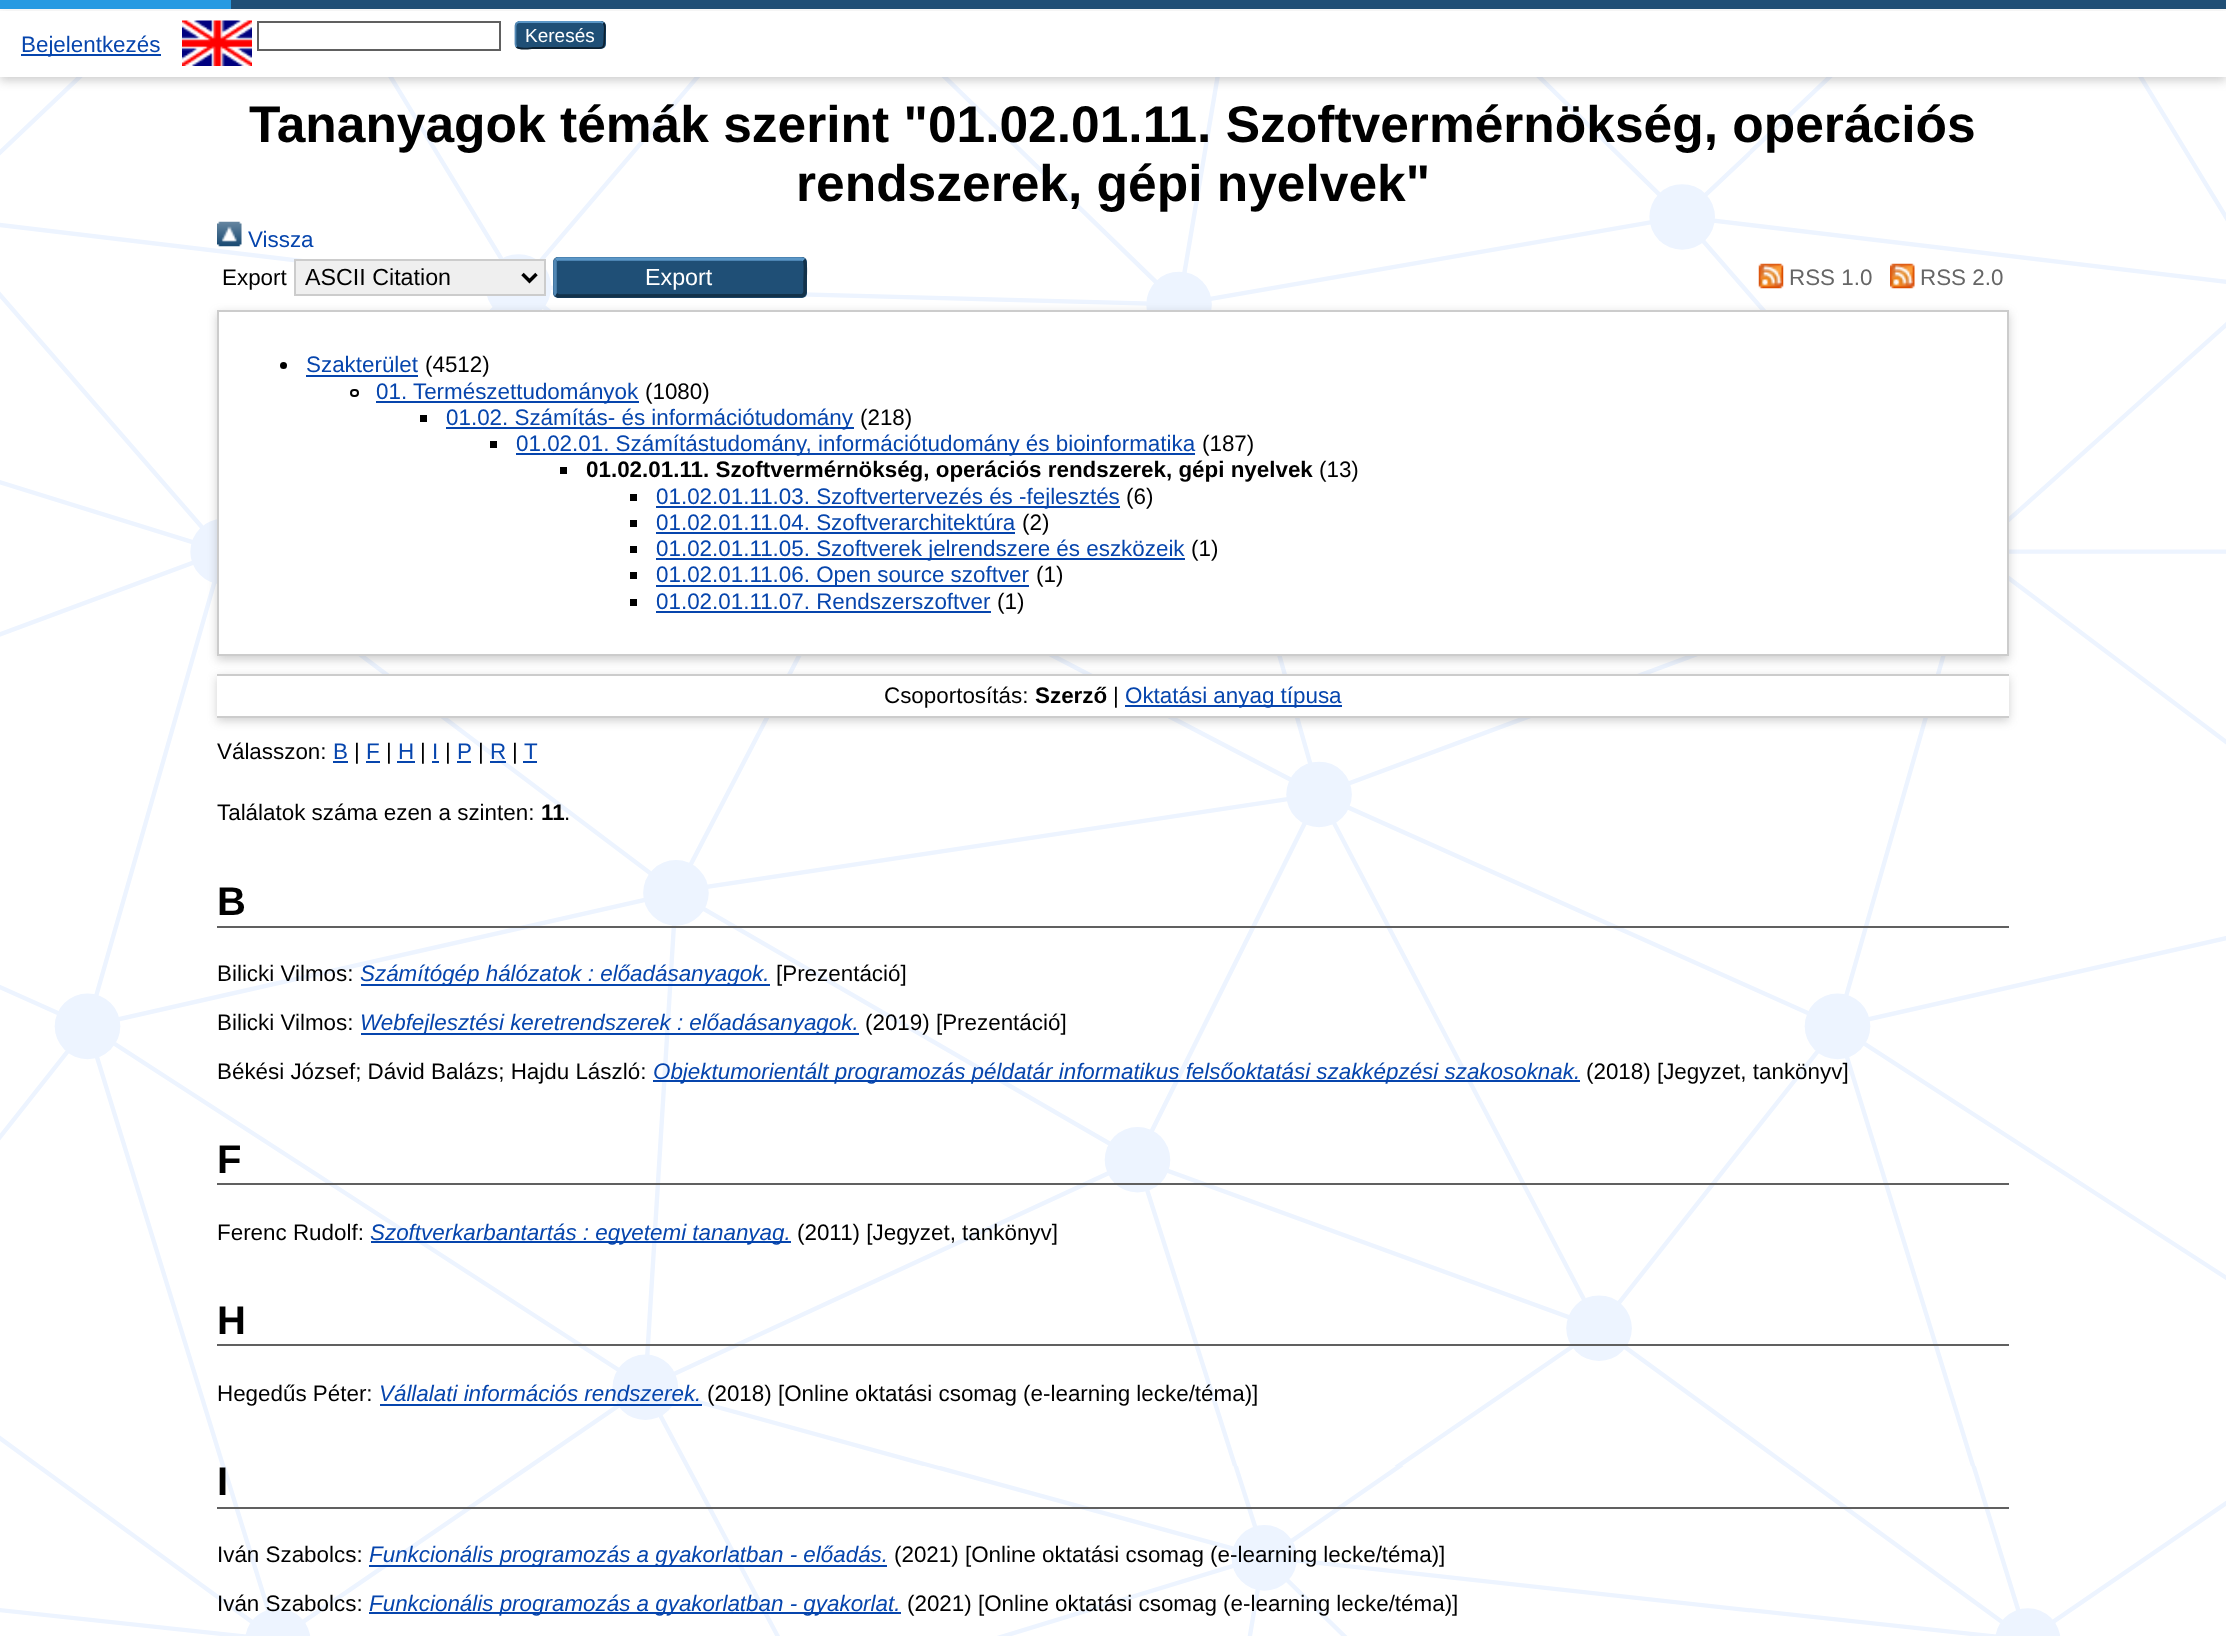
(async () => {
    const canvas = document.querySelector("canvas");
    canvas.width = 2226;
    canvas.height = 1636;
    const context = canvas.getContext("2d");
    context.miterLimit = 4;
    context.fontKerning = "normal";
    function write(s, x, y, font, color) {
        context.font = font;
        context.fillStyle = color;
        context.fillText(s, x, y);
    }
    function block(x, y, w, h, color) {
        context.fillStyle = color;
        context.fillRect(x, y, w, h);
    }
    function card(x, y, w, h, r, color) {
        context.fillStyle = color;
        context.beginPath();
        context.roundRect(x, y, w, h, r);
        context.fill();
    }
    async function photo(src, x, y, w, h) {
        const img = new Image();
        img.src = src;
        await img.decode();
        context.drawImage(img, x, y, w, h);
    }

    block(0, 0, 2226, 1636, "rgb(255, 255, 255)");
    await photo("media/1.png", 0, 77, 2226, 1559);
    block(231, 0, 1995, 9, "rgb(32, 79, 118)");
    context.fillStyle = "rgba(100, 100, 100, 0.3)";
    context.filter = "blur(5px)";
    context.beginPath();
    context.rect(0, 14, 2226, 67);
    context.fill();
    context.filter = "none";
    block(0, 0, 231, 9, "rgb(39, 154, 226)");
    block(0, 11, 2226, 66, "rgb(255, 255, 255)");
    block(21, 54, 140, 2, "rgb(6, 69, 173)");
    write("Bejelentkezés", 21, 52, "22.4px Liberation Sans", "rgb(6, 69, 173)");
    await photo("media/2.png", 182, 20, 70, 46);
    context.strokeStyle = "rgb(96, 96, 96)";
    context.lineWidth = 2;
    context.strokeRect(258, 22, 242, 28);
    card(515, 21, 91, 28, 5, "rgb(31, 79, 118)");
    context.beginPath();
    context.moveTo(516.5, 23);
    context.lineTo(519.5, 22);
    context.lineTo(600.5, 22);
    context.lineTo(603.5, 23);
    context.strokeStyle = "rgb(91, 151, 199)";
    context.lineWidth = 1.8;
    context.stroke();
    context.beginPath();
    context.moveTo(603.5, 23);
    context.bezierCurveTo(606, 25.5, 604.5, 32, 604.5, 35);
    context.bezierCurveTo(604.5, 51, 604.5, 48, 587, 48);
    context.lineTo(533, 48);
    context.bezierCurveTo(532, 48, 520, 50, 516.5, 47);
    context.strokeStyle = "rgb(13, 33, 49)";
    context.stroke();
    context.beginPath();
    context.moveTo(516.5, 47);
    context.bezierCurveTo(516, 46, 515.5, 45, 515.5, 44);
    context.lineTo(515.5, 26.5);
    context.bezierCurveTo(515.5, 25, 516, 24, 516.5, 23);
    context.strokeStyle = "rgb(82, 135, 179)";
    context.stroke();
    write("Keresés", 525, 42, "19px Liberation Sans", "rgb(255, 255, 255)");
    write("Tananyagok témák szerint \"01.02.01.11. Szoftvermérnökség, operációs", 249, 142, "bold 51.5px Liberation Sans", "rgb(0, 0, 0)");
    write("rendszerek, gépi nyelvek\"", 796, 201, "bold 51.5px Liberation Sans", "rgb(0, 0, 0)");
    await photo("media/3.png", 217, 221, 25, 26);
    write("Vissza", 248, 247, "22.4px Liberation Sans", "rgb(6, 69, 173)");
    write("Export", 222, 285, "22.4px Liberation Sans", "rgb(0, 0, 0)");
    context.fillStyle = "rgb(239, 239, 239)";
    context.beginPath();
    context.rect(295, 260, 250, 35);
    context.fill();
    context.strokeStyle = "rgb(204, 204, 204)";
    context.lineWidth = 2;
    context.stroke();
    context.beginPath();
    context.moveTo(522.5, 274);
    context.lineTo(529.5, 281);
    context.lineTo(536.5, 274);
    context.strokeStyle = "rgb(0, 0, 0)";
    context.lineWidth = 3.5;
    context.stroke();
    write("ASCII Citation", 305, 285, "23.25px Liberation Sans", "rgb(0, 0, 0)");
    context.fillStyle = "rgba(100, 100, 100, 0.3)";
    context.filter = "blur(5px)";
    context.beginPath();
    context.rect(217, 313, 1792, 347);
    context.fill();
    context.filter = "none";
    card(553, 257, 254, 41, 5, "rgb(31, 79, 118)");
    context.beginPath();
    context.moveTo(556, 260);
    context.bezierCurveTo(556.5, 259.5, 557.5, 259, 558, 259);
    context.lineTo(801.5, 259);
    context.bezierCurveTo(802.5, 259, 803.5, 259.5, 804, 260);
    context.strokeStyle = "rgb(91, 151, 199)";
    context.stroke();
    context.beginPath();
    context.moveTo(804, 260);
    context.bezierCurveTo(806.5, 262.5, 805, 278.5, 805, 282.5);
    context.lineTo(805, 287.5);
    context.bezierCurveTo(805, 290, 806, 294.5, 802.5, 295.5);
    context.lineTo(558, 296);
    context.lineTo(556, 294.5);
    context.strokeStyle = "rgb(19, 50, 74)";
    context.stroke();
    context.beginPath();
    context.moveTo(556, 294.5);
    context.bezierCurveTo(555, 294, 555, 293, 555, 292);
    context.lineTo(555, 262.5);
    context.bezierCurveTo(555, 261.5, 555, 260.5, 556, 260);
    context.strokeStyle = "rgb(82, 135, 179)";
    context.stroke();
    write("Export", 645, 285, "23.25px Liberation Sans", "rgb(255, 255, 255)");
    await photo("media/4.png", 1758, 263, 26, 26);
    write("RSS 1.0", 1789, 285, "22.4px Liberation Sans", "rgb(102, 102, 102)");
    await photo("media/5.png", 1890, 263, 25, 26);
    write("RSS 2.0", 1920, 285, "22.4px Liberation Sans", "rgb(102, 102, 102)");
    context.fillStyle = "rgb(255, 255, 255)";
    context.beginPath();
    context.rect(218, 311, 1790, 344);
    context.fill();
    context.strokeStyle = "rgb(204, 204, 204)";
    context.lineWidth = 2;
    context.stroke();
    context.fillStyle = "rgb(0, 0, 0)";
    context.beginPath();
    context.arc(283.5, 365.5, 3.5, 0, Math.PI * 2);
    context.fill();
    write("Szakterület", 306, 372, "22.4px Liberation Sans", "rgb(6, 69, 173)");
    block(306, 375, 112, 2, "rgb(6, 69, 173)");
    write("(4512)", 425, 372, "22.4px Liberation Sans", "rgb(0, 0, 0)");
    context.beginPath();
    context.roundRect(351, 390, 7, 6, 3);
    context.strokeStyle = "rgb(0, 0, 0)";
    context.stroke();
    block(376, 401, 263, 2, "rgb(6, 69, 173)");
    write("01. Természettudományok", 376, 399, "22.4px Liberation Sans", "rgb(6, 69, 173)");
    write("(1080)", 645, 399, "22.4px Liberation Sans", "rgb(0, 0, 0)");
    block(420, 415, 7, 7, "rgb(0, 0, 0)");
    block(446, 427, 408, 2, "rgb(6, 69, 173)");
    write("01.02. Számítás- és információtudomány", 446, 425, "22.4px Liberation Sans", "rgb(6, 69, 173)");
    write("(218)", 860, 425, "22.4px Liberation Sans", "rgb(0, 0, 0)");
    block(490, 441, 7, 7, "rgb(0, 0, 0)");
    block(516, 453, 679, 2, "rgb(6, 69, 173)");
    write("01.02.01. Számítástudomány, információtudomány és bioinformatika", 516, 451, "22.4px Liberation Sans", "rgb(6, 69, 173)");
    write("(187)", 1202, 451, "22.4px Liberation Sans", "rgb(0, 0, 0)");
    block(560, 467, 7, 7, "rgb(0, 0, 0)");
    write("01.02.01.11. Szoftvermérnökség, operációs rendszerek, gépi nyelvek", 586, 477, "bold 22.4px Liberation Sans", "rgb(0, 0, 0)");
    write("(13)", 1319, 477, "22.4px Liberation Sans", "rgb(0, 0, 0)");
    block(630, 494, 7, 7, "rgb(0, 0, 0)");
    block(656, 506, 464, 2, "rgb(6, 69, 173)");
    write("01.02.01.11.03. Szoftvertervezés és -fejlesztés", 656, 504, "22.4px Liberation Sans", "rgb(6, 69, 173)");
    write("(6)", 1126, 504, "22.4px Liberation Sans", "rgb(0, 0, 0)");
    block(630, 520, 7, 7, "rgb(0, 0, 0)");
    write("01.02.01.11.04. Szoftverarchitektúra", 656, 530, "22.4px Liberation Sans", "rgb(6, 69, 173)");
    block(656, 532, 359, 2, "rgb(6, 69, 173)");
    write("(2)", 1022, 530, "22.4px Liberation Sans", "rgb(0, 0, 0)");
    block(630, 546, 7, 7, "rgb(0, 0, 0)");
    block(656, 558, 529, 2, "rgb(6, 69, 173)");
    write("01.02.01.11.05. Szoftverek jelrendszere és eszközeik", 656, 556, "22.4px Liberation Sans", "rgb(6, 69, 173)");
    write("(1)", 1191, 556, "22.4px Liberation Sans", "rgb(0, 0, 0)");
    block(630, 572, 7, 7, "rgb(0, 0, 0)");
    block(656, 585, 373, 2, "rgb(6, 69, 173)");
    write("01.02.01.11.06. Open source szoftver", 656, 582, "22.4px Liberation Sans", "rgb(6, 69, 173)");
    write("(1)", 1036, 582, "22.4px Liberation Sans", "rgb(0, 0, 0)");
    block(630, 599, 7, 7, "rgb(0, 0, 0)");
    write("01.02.01.11.07. Rendszerszoftver", 656, 609, "22.4px Liberation Sans", "rgb(6, 69, 173)");
    block(656, 611, 335, 2, "rgb(6, 69, 173)");
    write("(1)", 997, 609, "22.4px Liberation Sans", "rgb(0, 0, 0)");
    context.fillStyle = "rgba(100, 100, 100, 0.3)";
    context.filter = "blur(5px)";
    context.beginPath();
    context.rect(217, 677, 1792, 44);
    context.fill();
    context.filter = "none";
    block(217, 676, 1792, 40, "rgb(255, 255, 255)");
    block(217, 674, 1792, 2, "rgb(204, 204, 204)");
    block(217, 716, 1792, 2, "rgb(204, 204, 204)");
    write("Csoportosítás:", 884, 703, "22.4px Liberation Sans", "rgb(0, 0, 0)");
    write("Szerző", 1035, 703, "bold 22.4px Liberation Sans", "rgb(0, 0, 0)");
    write("|", 1113, 703, "22.4px Liberation Sans", "rgb(0, 0, 0)");
    block(1125, 705, 217, 2, "rgb(6, 69, 173)");
    write("Oktatási anyag típusa", 1125, 703, "22.4px Liberation Sans", "rgb(6, 69, 173)");
    write("Válasszon:", 217, 759, "22.4px Liberation Sans", "rgb(0, 0, 0)");
    write("B", 333, 759, "22.4px Liberation Sans", "rgb(6, 69, 173)");
    block(333, 761, 15, 2, "rgb(6, 69, 173)");
    write("|", 354, 759, "22.4px Liberation Sans", "rgb(0, 0, 0)");
    write("F", 366, 759, "22.4px Liberation Sans", "rgb(6, 69, 173)");
    block(366, 761, 14, 2, "rgb(6, 69, 173)");
    write("|", 386, 759, "22.4px Liberation Sans", "rgb(0, 0, 0)");
    write("H", 398, 759, "22.4px Liberation Sans", "rgb(6, 69, 173)");
    block(397, 761, 18, 2, "rgb(6, 69, 173)");
    write("|", 420, 759, "22.4px Liberation Sans", "rgb(0, 0, 0)");
    write("I", 432, 759, "22.4px Liberation Sans", "rgb(6, 69, 173)");
    block(432, 761, 7, 2, "rgb(6, 69, 173)");
    write("|", 445, 759, "22.4px Liberation Sans", "rgb(0, 0, 0)");
    write("P", 457, 759, "22.4px Liberation Sans", "rgb(6, 69, 173)");
    block(457, 761, 14, 2, "rgb(6, 69, 173)");
    write("|", 478, 759, "22.4px Liberation Sans", "rgb(0, 0, 0)");
    write("R", 490, 759, "22.4px Liberation Sans", "rgb(6, 69, 173)");
    block(490, 761, 16, 2, "rgb(6, 69, 173)");
    write("|", 512, 759, "22.4px Liberation Sans", "rgb(0, 0, 0)");
    write("T", 524, 759, "22.4px Liberation Sans", "rgb(6, 69, 173)");
    block(523, 761, 14, 2, "rgb(6, 69, 173)");
    write("Találatok száma ezen a szinten:", 217, 820, "22.4px Liberation Sans", "rgb(0, 0, 0)");
    write("11", 541, 820, "bold 22.4px Liberation Sans", "rgb(0, 0, 0)");
    write(".", 564, 820, "22.4px Liberation Sans", "rgb(0, 0, 0)");
    block(217, 926, 1792, 2, "rgb(96, 96, 96)");
    write("B", 217, 915, "bold 40px Liberation Sans", "rgb(0, 0, 0)");
    write("Bilicki Vilmos:", 217, 981, "22.4px Liberation Sans", "rgb(0, 0, 0)");
    block(361, 984, 409, 2, "rgb(6, 69, 173)");
    write("Számítógép hálózatok : előadásanyagok.", 360, 981, "italic 22.4px Liberation Sans", "rgb(6, 69, 173)");
    write("[Prezentáció]", 776, 981, "22.4px Liberation Sans", "rgb(0, 0, 0)");
    write("Bilicki Vilmos:", 217, 1030, "22.4px Liberation Sans", "rgb(0, 0, 0)");
    block(361, 1033, 498, 2, "rgb(6, 69, 173)");
    write("Webfejlesztési keretrendszerek : előadásanyagok.", 360, 1030, "italic 22.4px Liberation Sans", "rgb(6, 69, 173)");
    write("(2019) [Prezentáció]", 865, 1030, "22.4px Liberation Sans", "rgb(0, 0, 0)");
    write("Békési József; Dávid Balázs; Hajdu László:", 217, 1079, "22.4px Liberation Sans", "rgb(0, 0, 0)");
    block(653, 1080, 927, 2, "rgb(6, 69, 173)");
    write("Objektumorientált programozás példatár informatikus felsőoktatási szakképzési szakosoknak.", 653, 1079, "italic 22.4px Liberation Sans", "rgb(6, 69, 173)");
    write("(2018) [Jegyzet, tankönyv]", 1586, 1079, "22.4px Liberation Sans", "rgb(0, 0, 0)");
    block(217, 1183, 1792, 2, "rgb(96, 96, 96)");
    write("F", 217, 1173, "bold 40px Liberation Sans", "rgb(0, 0, 0)");
    write("Ferenc Rudolf:", 217, 1240, "22.4px Liberation Sans", "rgb(0, 0, 0)");
    block(371, 1241, 420, 2, "rgb(6, 69, 173)");
    write("Szoftverkarbantartás : egyetemi tananyag.", 370, 1240, "italic 22.4px Liberation Sans", "rgb(6, 69, 173)");
    write("(2011) [Jegyzet, tankönyv]", 797, 1240, "22.4px Liberation Sans", "rgb(0, 0, 0)");
    block(217, 1344, 1792, 2, "rgb(96, 96, 96)");
    write("H", 217, 1334, "bold 40px Liberation Sans", "rgb(0, 0, 0)");
    write("Hegedűs Péter:", 217, 1401, "22.4px Liberation Sans", "rgb(0, 0, 0)");
    write("Vállalati információs rendszerek.", 379, 1401, "italic 22.4px Liberation Sans", "rgb(6, 69, 173)");
    block(380, 1404, 322, 2, "rgb(6, 69, 173)");
    write("(2018) [Online oktatási csomag (e-learning lecke/téma)]", 707, 1401, "22.4px Liberation Sans", "rgb(0, 0, 0)");
    block(217, 1507, 1792, 2, "rgb(96, 96, 96)");
    write("I", 217, 1495, "bold 40px Liberation Sans", "rgb(0, 0, 0)");
    write("Iván Szabolcs:", 217, 1562, "22.4px Liberation Sans", "rgb(0, 0, 0)");
    block(369, 1565, 518, 2, "rgb(6, 69, 173)");
    write("Funkcionális programozás a gyakorlatban - előadás.", 369, 1562, "italic 22.4px Liberation Sans", "rgb(6, 69, 173)");
    write("(2021) [Online oktatási csomag (e-learning lecke/téma)]", 894, 1562, "22.4px Liberation Sans", "rgb(0, 0, 0)");
    write("Iván Szabolcs:", 217, 1611, "22.4px Liberation Sans", "rgb(0, 0, 0)");
    block(369, 1612, 532, 2, "rgb(6, 69, 173)");
    write("Funkcionális programozás a gyakorlatban - gyakorlat.", 369, 1611, "italic 22.4px Liberation Sans", "rgb(6, 69, 173)");
    write("(2021) [Online oktatási csomag (e-learning lecke/téma)]", 907, 1611, "22.4px Liberation Sans", "rgb(0, 0, 0)");
})();
